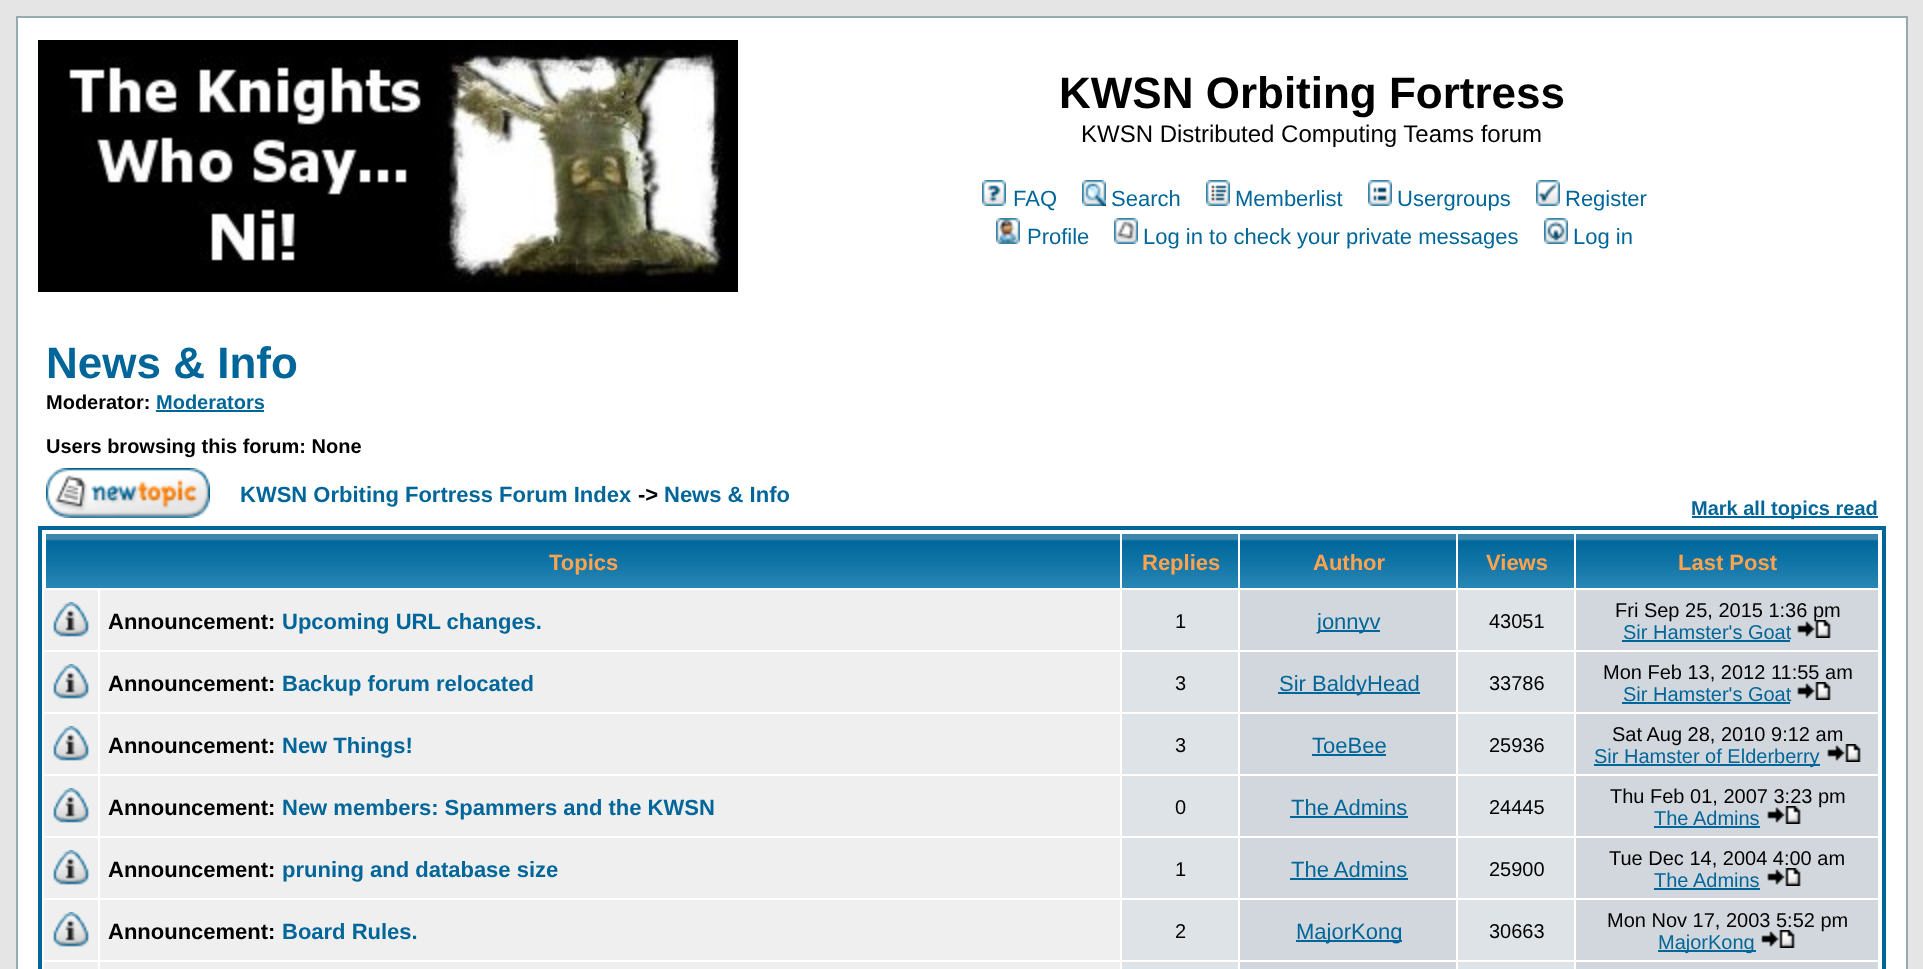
(async () => {
    const canvas = document.querySelector("canvas");
    canvas.width = 1923;
    canvas.height = 969;
    const context = canvas.getContext("2d");
    context.miterLimit = 4;
    context.fontKerning = "normal";
    function write(s, x, y, font, color) {
        context.font = font;
        context.fillStyle = color;
        context.fillText(s, x, y);
    }
    function block(x, y, w, h, color) {
        context.fillStyle = color;
        context.fillRect(x, y, w, h);
    }
    async function photo(src, x, y, w, h) {
        const img = new Image();
        img.src = src;
        await img.decode();
        context.drawImage(img, x, y, w, h);
    }

    block(0, 0, 1923, 969, "rgb(229, 229, 229)");
    context.fillStyle = "rgb(255, 255, 255)";
    context.beginPath();
    context.rect(17, 17, 1890, 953);
    context.fill();
    context.strokeStyle = "rgb(152, 170, 177)";
    context.lineWidth = 2;
    context.stroke();
    await photo("media/1.png", 38, 40, 700, 252);
    write("KWSN Orbiting Fortress", 1059, 108, "bold 44px Liberation Sans", "rgb(0, 0, 0)");
    write("KWSN Distributed Computing Teams forum", 1081, 142, "24px Liberation Sans", "rgb(0, 0, 0)");
    await photo("media/2.png", 982, 180, 24, 26);
    write("FAQ", 1013, 206, "22px Liberation Sans", "rgb(0, 102, 153)");
    await photo("media/3.png", 1082, 180, 24, 26);
    write("Search", 1111, 206, "22px Liberation Sans", "rgb(0, 102, 153)");
    await photo("media/4.png", 1206, 180, 24, 26);
    write("Memberlist", 1235, 206, "22px Liberation Sans", "rgb(0, 102, 153)");
    await photo("media/5.png", 1368, 180, 24, 26);
    write("Usergroups", 1397, 206, "22px Liberation Sans", "rgb(0, 102, 153)");
    await photo("media/6.png", 1536, 180, 24, 26);
    write("Register", 1565, 206, "22px Liberation Sans", "rgb(0, 102, 153)");
    await photo("media/7.png", 996, 218, 24, 26);
    write("Profile", 1027, 244, "22px Liberation Sans", "rgb(0, 102, 153)");
    await photo("media/8.png", 1114, 218, 24, 26);
    write("Log in to check your private messages", 1143, 244, "22px Liberation Sans", "rgb(0, 102, 153)");
    await photo("media/9.png", 1544, 218, 24, 26);
    write("Log in", 1573, 244, "22px Liberation Sans", "rgb(0, 102, 153)");
    write("News & Info", 46, 378, "bold 44px Liberation Sans", "rgb(0, 102, 153)");
    write("Moderator:", 46, 409, "bold 20px Liberation Sans", "rgb(0, 0, 0)");
    write("Moderators", 156, 409, "bold 20px Liberation Sans", "rgb(0, 102, 153)");
    block(156, 410, 108, 2, "rgb(0, 102, 153)");
    write("Users browsing this forum: None", 46, 453, "bold 20px Liberation Sans", "rgb(0, 0, 0)");
    await photo("media/10.png", 46, 468, 164, 50);
    write("KWSN Orbiting Fortress Forum Index", 240, 502, "bold 22px Liberation Sans", "rgb(0, 102, 153)");
    write("->", 638, 502, "bold 22px Liberation Sans", "rgb(0, 0, 0)");
    write("News & Info", 664, 502, "bold 22px Liberation Sans", "rgb(0, 102, 153)");
    block(1692, 516, 186, 2, "rgb(0, 102, 153)");
    write("Mark all topics read", 1691, 515, "bold 20px Liberation Sans", "rgb(0, 102, 153)");
    context.strokeStyle = "rgb(0, 102, 153)";
    context.lineWidth = 4;
    context.strokeRect(40, 528, 1844, 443);
    await photo("media/11.png", 46, 534, 1074, 54);
    write("Topics", 549, 570, "bold 22px Liberation Sans", "rgb(255, 163, 79)");
    await photo("media/12.png", 1122, 534, 116, 54);
    write("Replies", 1142, 570, "bold 22px Liberation Sans", "rgb(255, 163, 79)");
    await photo("media/13.png", 1240, 534, 216, 54);
    write("Author", 1313, 570, "bold 22px Liberation Sans", "rgb(255, 163, 79)");
    await photo("media/12.png", 1458, 534, 116, 54);
    write("Views", 1486, 570, "bold 22px Liberation Sans", "rgb(255, 163, 79)");
    await photo("media/14.png", 1576, 534, 302, 54);
    write("Last Post", 1678, 570, "bold 22px Liberation Sans", "rgb(255, 163, 79)");
    block(44, 590, 54, 60, "rgb(239, 239, 239)");
    await photo("media/15.png", 52, 602, 38, 35);
    block(100, 590, 1020, 60, "rgb(239, 239, 239)");
    write("Announcement:", 108, 629, "bold 22px Liberation Sans", "rgb(0, 0, 0)");
    write("Upcoming URL changes.", 282, 629, "bold 22px Liberation Sans", "rgb(0, 102, 153)");
    block(1122, 590, 116, 60, "rgb(222, 227, 231)");
    write("1", 1175, 628, "20px Liberation Sans", "rgb(0, 0, 0)");
    block(1240, 590, 216, 60, "rgb(209, 215, 220)");
    block(1318, 630, 62, 2, "rgb(0, 102, 153)");
    write("jonnyv", 1317, 629, "22px Liberation Sans", "rgb(0, 102, 153)");
    block(1458, 590, 116, 60, "rgb(222, 227, 231)");
    write("43051", 1489, 628, "20px Liberation Sans", "rgb(0, 0, 0)");
    block(1576, 590, 302, 60, "rgb(209, 215, 220)");
    write("Fri Sep 25, 2015 1:36 pm", 1615, 617, "20px Liberation Sans", "rgb(0, 0, 0)");
    write("Sir Hamster's Goat", 1623, 639, "20px Liberation Sans", "rgb(0, 102, 153)");
    block(1622, 640, 168, 2, "rgb(0, 102, 153)");
    await photo("media/16.png", 1797, 620, 34, 18);
    block(44, 652, 54, 60, "rgb(239, 239, 239)");
    await photo("media/15.png", 52, 664, 38, 35);
    block(100, 652, 1020, 60, "rgb(239, 239, 239)");
    write("Announcement:", 108, 691, "bold 22px Liberation Sans", "rgb(0, 0, 0)");
    write("Backup forum relocated", 282, 691, "bold 22px Liberation Sans", "rgb(0, 102, 153)");
    block(1122, 652, 116, 60, "rgb(222, 227, 231)");
    write("3", 1175, 690, "20px Liberation Sans", "rgb(0, 0, 0)");
    block(1240, 652, 216, 60, "rgb(209, 215, 220)");
    block(1278, 692, 142, 2, "rgb(0, 102, 153)");
    write("Sir BaldyHead", 1279, 691, "22px Liberation Sans", "rgb(0, 102, 153)");
    block(1458, 652, 116, 60, "rgb(222, 227, 231)");
    write("33786", 1489, 690, "20px Liberation Sans", "rgb(0, 0, 0)");
    block(1576, 652, 302, 60, "rgb(209, 215, 220)");
    write("Mon Feb 13, 2012 11:55 am", 1603, 679, "20px Liberation Sans", "rgb(0, 0, 0)");
    write("Sir Hamster's Goat", 1623, 701, "20px Liberation Sans", "rgb(0, 102, 153)");
    block(1622, 702, 168, 2, "rgb(0, 102, 153)");
    await photo("media/17.png", 1797, 682, 34, 18);
    block(44, 714, 54, 60, "rgb(239, 239, 239)");
    await photo("media/15.png", 52, 726, 38, 35);
    block(100, 714, 1020, 60, "rgb(239, 239, 239)");
    write("Announcement:", 108, 753, "bold 22px Liberation Sans", "rgb(0, 0, 0)");
    write("New Things!", 282, 753, "bold 22px Liberation Sans", "rgb(0, 102, 153)");
    block(1122, 714, 116, 60, "rgb(222, 227, 231)");
    write("3", 1175, 752, "20px Liberation Sans", "rgb(0, 0, 0)");
    block(1240, 714, 216, 60, "rgb(209, 215, 220)");
    write("ToeBee", 1312, 753, "22px Liberation Sans", "rgb(0, 102, 153)");
    block(1312, 754, 74, 2, "rgb(0, 102, 153)");
    block(1458, 714, 116, 60, "rgb(222, 227, 231)");
    write("25936", 1489, 752, "20px Liberation Sans", "rgb(0, 0, 0)");
    block(1576, 714, 302, 60, "rgb(209, 215, 220)");
    write("Sat Aug 28, 2010 9:12 am", 1612, 741, "20px Liberation Sans", "rgb(0, 0, 0)");
    block(1594, 764, 226, 2, "rgb(0, 102, 153)");
    write("Sir Hamster of Elderberry", 1594, 763, "20px Liberation Sans", "rgb(0, 102, 153)");
    await photo("media/17.png", 1827, 744, 34, 18);
    block(44, 776, 54, 60, "rgb(239, 239, 239)");
    await photo("media/15.png", 52, 788, 38, 35);
    block(100, 776, 1020, 60, "rgb(239, 239, 239)");
    write("Announcement:", 108, 815, "bold 22px Liberation Sans", "rgb(0, 0, 0)");
    write("New members: Spammers and the KWSN", 282, 815, "bold 22px Liberation Sans", "rgb(0, 102, 153)");
    block(1122, 776, 116, 60, "rgb(222, 227, 231)");
    write("0", 1175, 814, "20px Liberation Sans", "rgb(0, 0, 0)");
    block(1240, 776, 216, 60, "rgb(209, 215, 220)");
    write("The Admins", 1291, 815, "22px Liberation Sans", "rgb(0, 102, 153)");
    block(1290, 816, 118, 2, "rgb(0, 102, 153)");
    block(1458, 776, 116, 60, "rgb(222, 227, 231)");
    write("24445", 1489, 814, "20px Liberation Sans", "rgb(0, 0, 0)");
    block(1576, 776, 302, 60, "rgb(209, 215, 220)");
    write("Thu Feb 01, 2007 3:23 pm", 1610, 803, "20px Liberation Sans", "rgb(0, 0, 0)");
    write("The Admins", 1654, 825, "20px Liberation Sans", "rgb(0, 102, 153)");
    block(1654, 826, 106, 2, "rgb(0, 102, 153)");
    await photo("media/17.png", 1767, 806, 34, 18);
    block(44, 838, 54, 60, "rgb(239, 239, 239)");
    await photo("media/15.png", 52, 850, 38, 35);
    block(100, 838, 1020, 60, "rgb(239, 239, 239)");
    write("Announcement:", 108, 877, "bold 22px Liberation Sans", "rgb(0, 0, 0)");
    write("pruning and database size", 282, 877, "bold 22px Liberation Sans", "rgb(0, 102, 153)");
    block(1122, 838, 116, 60, "rgb(222, 227, 231)");
    write("1", 1175, 876, "20px Liberation Sans", "rgb(0, 0, 0)");
    block(1240, 838, 216, 60, "rgb(209, 215, 220)");
    write("The Admins", 1291, 877, "22px Liberation Sans", "rgb(0, 102, 153)");
    block(1290, 878, 118, 2, "rgb(0, 102, 153)");
    block(1458, 838, 116, 60, "rgb(222, 227, 231)");
    write("25900", 1489, 876, "20px Liberation Sans", "rgb(0, 0, 0)");
    block(1576, 838, 302, 60, "rgb(209, 215, 220)");
    write("Tue Dec 14, 2004 4:00 am", 1609, 865, "20px Liberation Sans", "rgb(0, 0, 0)");
    write("The Admins", 1654, 887, "20px Liberation Sans", "rgb(0, 102, 153)");
    block(1654, 888, 106, 2, "rgb(0, 102, 153)");
    await photo("media/17.png", 1767, 868, 34, 18);
    block(44, 900, 54, 60, "rgb(239, 239, 239)");
    await photo("media/15.png", 52, 912, 38, 35);
    block(100, 900, 1020, 60, "rgb(239, 239, 239)");
    write("Announcement:", 108, 939, "bold 22px Liberation Sans", "rgb(0, 0, 0)");
    write("Board Rules.", 282, 939, "bold 22px Liberation Sans", "rgb(0, 102, 153)");
    block(1122, 900, 116, 60, "rgb(222, 227, 231)");
    write("2", 1175, 938, "20px Liberation Sans", "rgb(0, 0, 0)");
    block(1240, 900, 216, 60, "rgb(209, 215, 220)");
    block(1296, 940, 106, 2, "rgb(0, 102, 153)");
    write("MajorKong", 1296, 939, "22px Liberation Sans", "rgb(0, 102, 153)");
    block(1458, 900, 116, 60, "rgb(222, 227, 231)");
    write("30663", 1489, 938, "20px Liberation Sans", "rgb(0, 0, 0)");
    block(1576, 900, 302, 60, "rgb(209, 215, 220)");
    write("Mon Nov 17, 2003 5:52 pm", 1607, 927, "20px Liberation Sans", "rgb(0, 0, 0)");
    block(1658, 950, 98, 2, "rgb(0, 102, 153)");
    write("MajorKong", 1658, 949, "20px Liberation Sans", "rgb(0, 102, 153)");
    await photo("media/17.png", 1761, 930, 34, 18);
    block(44, 962, 54, 7, "rgb(239, 239, 239)");
    block(100, 962, 1020, 7, "rgb(239, 239, 239)");
    block(1122, 962, 116, 7, "rgb(222, 227, 231)");
    block(1240, 962, 216, 7, "rgb(209, 215, 220)");
    block(1458, 962, 116, 7, "rgb(222, 227, 231)");
    block(1576, 962, 302, 7, "rgb(209, 215, 220)");
})();
